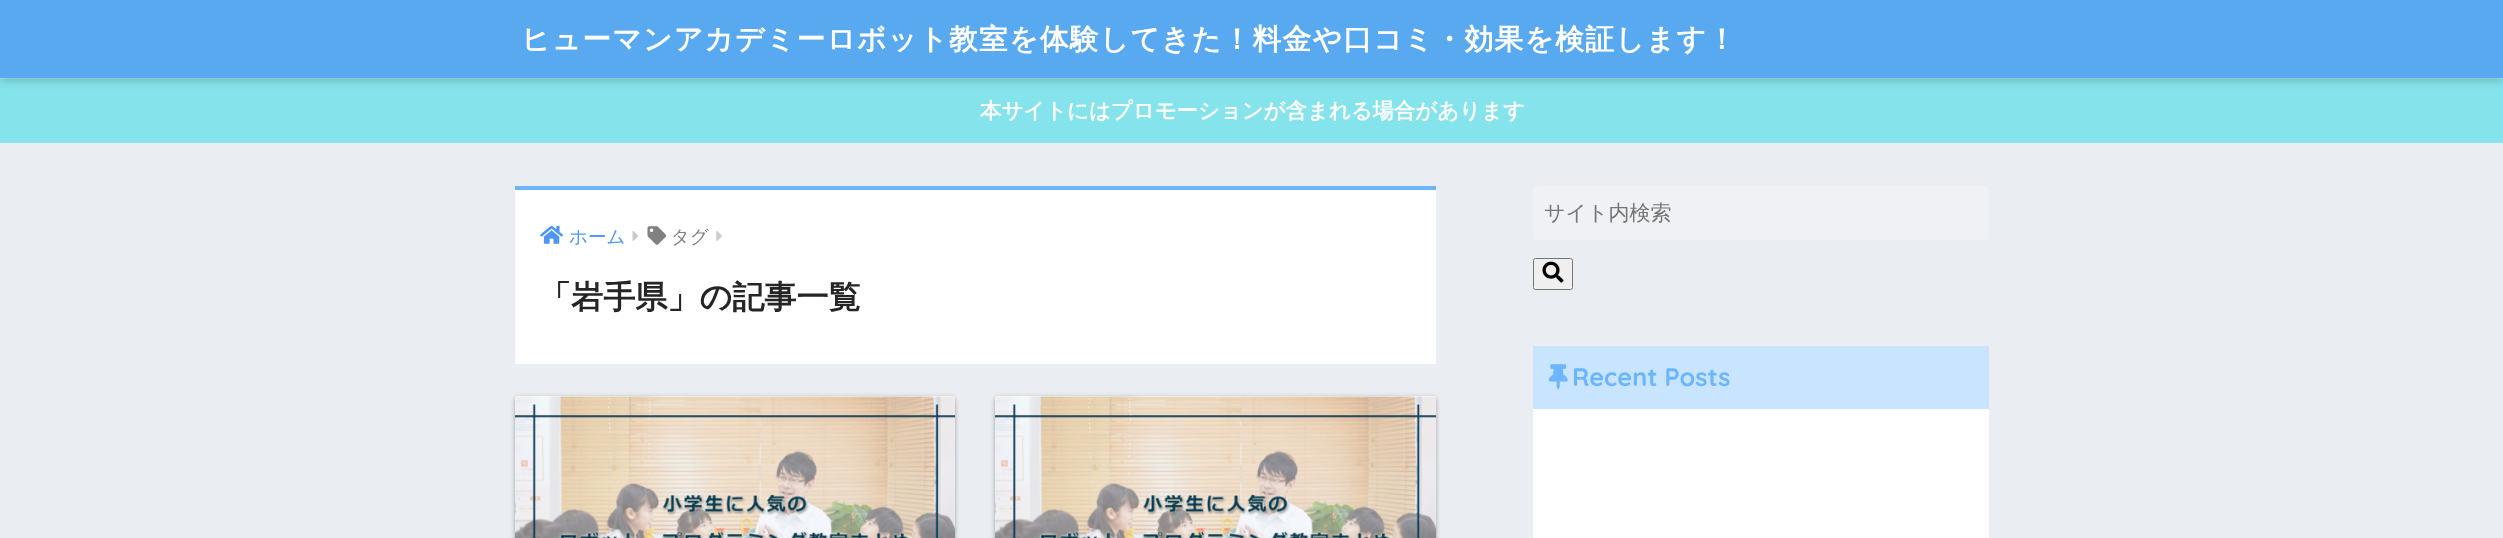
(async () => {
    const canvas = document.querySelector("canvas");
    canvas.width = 2503;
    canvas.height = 538;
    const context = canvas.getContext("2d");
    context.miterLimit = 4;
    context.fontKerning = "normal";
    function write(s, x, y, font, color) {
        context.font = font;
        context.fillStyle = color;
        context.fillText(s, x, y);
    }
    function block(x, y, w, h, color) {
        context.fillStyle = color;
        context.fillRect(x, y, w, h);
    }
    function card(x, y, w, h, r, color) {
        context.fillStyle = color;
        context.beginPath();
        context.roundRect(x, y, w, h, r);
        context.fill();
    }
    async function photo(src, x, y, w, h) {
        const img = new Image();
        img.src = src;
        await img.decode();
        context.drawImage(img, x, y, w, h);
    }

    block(0, 0, 2503, 538, "rgb(234, 237, 242)");
    block(0, 79, 2503, 64, "rgb(133, 227, 236)");
    block(0, 78, 2503, 1, "rgb(170, 235, 242)");
    context.fillStyle = "rgba(0, 0, 0, 0.18)";
    context.filter = "blur(4px)";
    context.beginPath();
    context.rect(0, 4, 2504, 77);
    context.fill();
    context.filter = "none";
    block(0, 0, 2503, 78, "rgb(88, 169, 239)");
    context.letterSpacing = "1.25px";
    write("ヒューマンアカデミーロボット教室を体験してきた！料金や口コミ・効果を検証します！", 521, 49, "bold 28.75px WenQuanYi Zen Hei", "rgb(255, 255, 255)");
    context.letterSpacing = "0px";
    write("本サイトにはプロモーションが含まれる場合があります", 980, 118, "bold 21.4px WenQuanYi Zen Hei", "rgb(255, 255, 255)");
    block(515, 190, 921, 174, "rgb(255, 255, 255)");
    block(515, 186, 921, 4, "rgb(107, 182, 255)");
    await photo("media/1.png", 540, 225, 23, 19);
    write("ホーム", 569, 243, "500 18.5px WenQuanYi Zen Hei", "rgb(79, 150, 246)");
    await photo("media/2.png", 632, 231, 6, 10);
    await photo("media/3.png", 647, 226, 20, 19);
    write("タグ", 671, 243, "500 18.5px WenQuanYi Zen Hei", "rgb(128, 128, 128)");
    await photo("media/4.png", 716, 231, 6, 10);
    write("「岩手県」の記事一覧", 539, 308, "bold 32.1px WenQuanYi Zen Hei", "rgb(37, 37, 37)");
    context.fillStyle = "rgba(0, 0, 0, 0.22)";
    context.filter = "blur(2px)";
    context.beginPath();
    context.roundRect(515, 399, 440, 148, 2.5);
    context.fill();
    context.filter = "none";
    context.fillStyle = "rgba(0, 0, 0, 0.12)";
    context.filter = "blur(2px)";
    context.beginPath();
    context.roundRect(515, 396, 440, 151, 2.5);
    context.fill();
    context.filter = "none";
    card(515, 396, 440, 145, 2.5, "rgb(255, 255, 255)");
    await photo("media/5.png", 515, 396, 440, 142);
    context.fillStyle = "rgba(0, 0, 0, 0.22)";
    context.filter = "blur(2px)";
    context.beginPath();
    context.roundRect(995, 399, 441, 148, 2.5);
    context.fill();
    context.filter = "none";
    context.fillStyle = "rgba(0, 0, 0, 0.12)";
    context.filter = "blur(2px)";
    context.beginPath();
    context.roundRect(995, 396, 441, 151, 2.5);
    context.fill();
    context.filter = "none";
    card(995, 396, 441, 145, 2.5, "rgb(255, 255, 255)");
    await photo("media/6.png", 995, 396, 442, 142);
    card(1533, 186, 456, 54, 4, "rgb(239, 241, 245)");
    write("サイト内検索", 1544, 220, "500 21px WenQuanYi Zen Hei", "rgb(117, 117, 117)");
    context.fillStyle = "rgb(239, 239, 239)";
    context.beginPath();
    context.roundRect(1533.5, 258.5, 39, 31, 2);
    context.fill();
    context.strokeStyle = "rgb(118, 118, 118)";
    context.stroke();
    await photo("media/7.png", 1542, 261, 22, 22);
    block(1533, 409, 456, 129, "rgb(255, 255, 255)");
    block(1533, 346, 456, 63, "rgb(200, 228, 255)");
    await photo("media/8.png", 1548, 364, 20, 26);
    write("Recent Posts", 1572, 386, "bold 25.25px Quicksand", "rgb(107, 182, 255)");
})();
